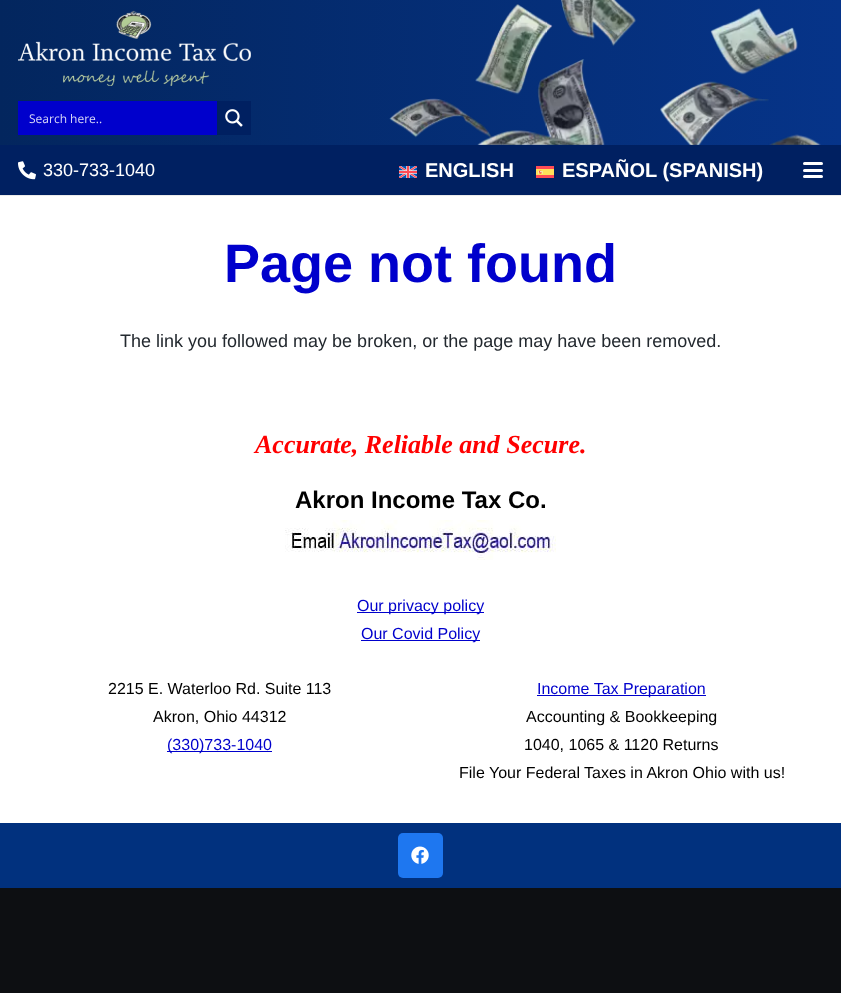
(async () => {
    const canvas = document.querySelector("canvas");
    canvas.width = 841;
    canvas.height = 993;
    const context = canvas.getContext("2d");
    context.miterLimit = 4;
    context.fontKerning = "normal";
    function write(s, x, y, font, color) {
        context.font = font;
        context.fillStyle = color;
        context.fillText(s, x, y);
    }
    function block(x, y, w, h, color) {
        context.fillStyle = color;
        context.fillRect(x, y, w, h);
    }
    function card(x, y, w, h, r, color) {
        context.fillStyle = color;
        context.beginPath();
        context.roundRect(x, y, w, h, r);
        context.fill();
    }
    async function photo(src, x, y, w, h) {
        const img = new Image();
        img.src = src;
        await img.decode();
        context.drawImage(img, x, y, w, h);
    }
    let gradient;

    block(0, 0, 841, 993, "rgb(13, 15, 18)");
    block(0, 196, 841, 627, "rgb(255, 255, 255)");
    gradient = context.createLinearGradient(0, 73, 841, 72);
    gradient.addColorStop(0, "rgb(3, 38, 94)");
    gradient.addColorStop(1, "rgb(6, 52, 137)");
    context.fillStyle = gradient;
    context.fillRect(0, 0, 841, 145);
    await photo("media/1.png", 389, 0, 432, 145);
    await photo("media/2.png", 18, 10, 233, 76);
    block(18, 101, 199, 34, "rgb(0, 0, 204)");
    write("Search here..", 29, 123, "12px Open Sans", "rgb(217, 217, 247)");
    block(217, 101, 34, 34, "rgb(0, 32, 97)");
    await photo("media/3.png", 225, 109, 18, 18);
    block(0, 195, 841, 1, "rgb(235, 235, 235)");
    block(0, 145, 841, 50, "rgb(0, 32, 97)");
    await photo("media/4.png", 18, 161, 18, 19);
    write("330-733-1040", 43, 176, "18px Liberation Sans", "rgb(255, 255, 255)");
    await photo("media/5.png", 399, 166, 18, 12);
    write("ENGLISH", 425, 177, "bold 20px Liberation Sans", "rgb(255, 255, 255)");
    await photo("media/6.png", 536, 166, 18, 12);
    write("ESPAÑOL (SPANISH)", 562, 177, "bold 20px Liberation Sans", "rgb(255, 255, 255)");
    card(803, 169, 20, 3, 1.5, "rgb(255, 255, 255)");
    card(803, 162, 20, 3, 1.5, "rgb(255, 255, 255)");
    card(803, 175, 20, 3, 1.5, "rgb(255, 255, 255)");
    write("Page not found", 224, 282, "bold 54px Liberation Sans", "rgb(0, 0, 204)");
    write("The link you followed may be broken, or the page may have been removed.", 120, 347, "18px Liberation Sans", "rgb(35, 41, 47)");
    write("Accurate, Reliable and Secure.", 255, 453, "italic bold 26px Liberation Serif", "rgb(255, 0, 0)");
    write("Akron Income Tax Co.", 295, 508, "bold 24px Liberation Sans", "rgb(0, 0, 0)");
    await photo("media/7.png", 285, 520, 271, 40);
    block(357, 612, 127, 1, "rgb(0, 0, 204)");
    write("Our privacy policy", 357, 611, "16px Liberation Sans", "rgb(0, 0, 204)");
    block(361, 640, 119, 1, "rgb(0, 0, 204)");
    write("Our Covid Policy", 361, 639, "16px Liberation Sans", "rgb(0, 0, 204)");
    write("2215 E. Waterloo Rd. Suite 113", 108, 694, "16px Liberation Sans", "rgb(0, 0, 0)");
    write("Akron, Ohio 44312", 153, 722, "16px Liberation Sans", "rgb(0, 0, 0)");
    block(167, 751, 105, 1, "rgb(0, 0, 204)");
    write("(330)733-1040", 167, 750, "16px Liberation Sans", "rgb(0, 0, 204)");
    block(537, 695, 169, 1, "rgb(0, 0, 204)");
    write("Income Tax Preparation", 537, 694, "16px Liberation Sans", "rgb(0, 0, 204)");
    write("Accounting & Bookkeeping", 526, 722, "16px Liberation Sans", "rgb(0, 0, 0)");
    write("1040, 1065 & 1120 Returns", 524, 750, "16px Liberation Sans", "rgb(0, 0, 0)");
    write("File Your Federal Taxes in Akron Ohio with us!", 459, 778, "16px Liberation Sans", "rgb(0, 0, 0)");
    block(0, 823, 841, 65, "rgb(1, 49, 126)");
    card(398, 833, 45, 45, 5, "rgb(30, 119, 240)");
    await photo("media/8.png", 411, 846, 18, 18);
})();
